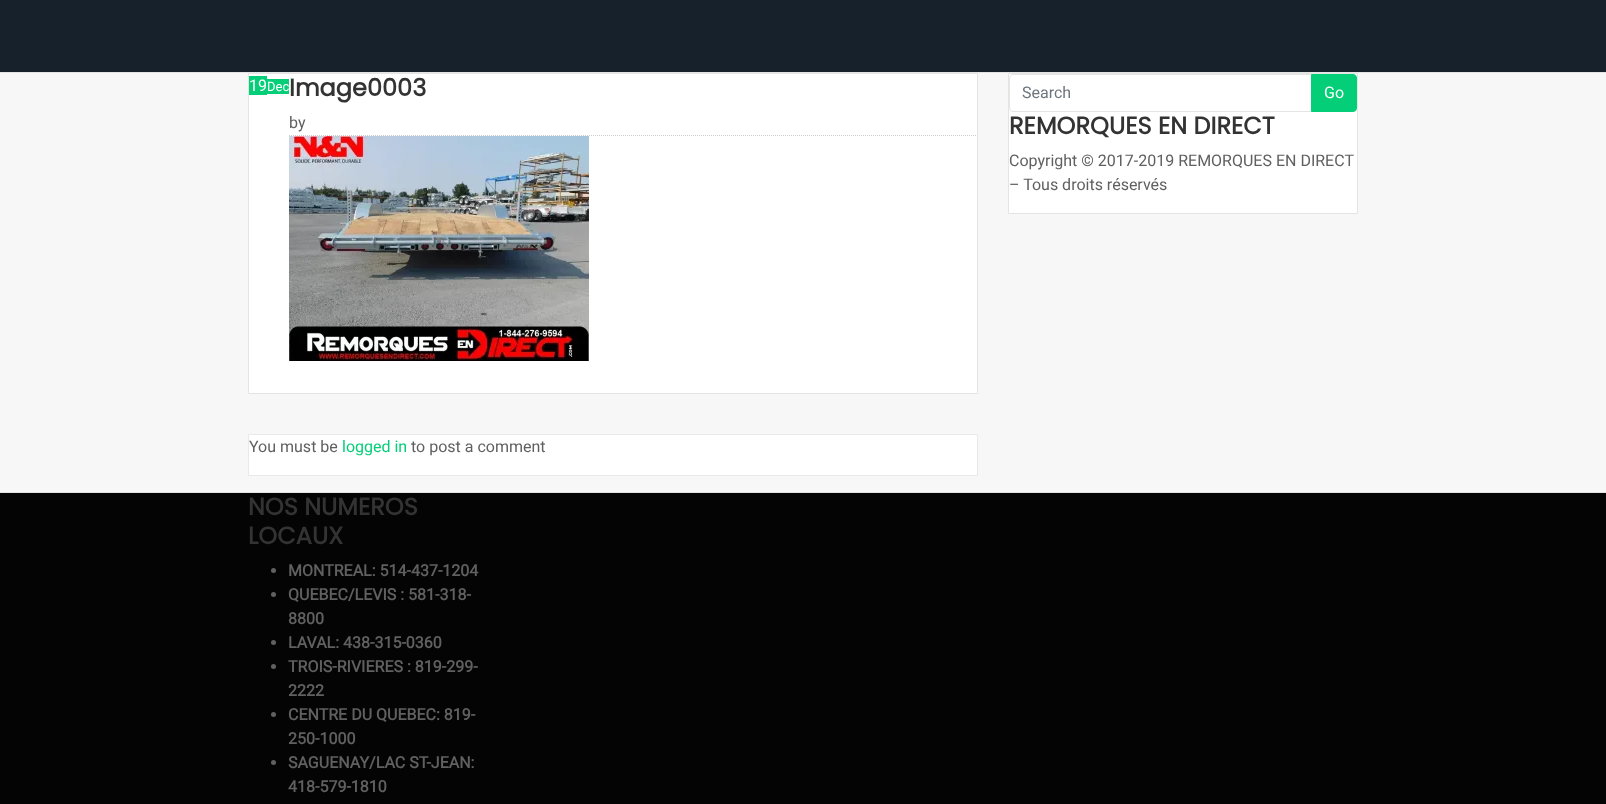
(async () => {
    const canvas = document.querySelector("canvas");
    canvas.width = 1606;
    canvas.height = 804;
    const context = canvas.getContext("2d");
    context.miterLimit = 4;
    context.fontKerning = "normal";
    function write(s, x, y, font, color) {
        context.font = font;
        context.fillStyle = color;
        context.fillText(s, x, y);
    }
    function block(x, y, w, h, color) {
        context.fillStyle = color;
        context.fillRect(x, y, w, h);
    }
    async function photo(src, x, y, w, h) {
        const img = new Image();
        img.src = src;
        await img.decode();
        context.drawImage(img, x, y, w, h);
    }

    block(0, 0, 1606, 804, "rgb(23, 33, 44)");
    block(0, 73, 1606, 419, "rgb(247, 247, 247)");
    block(0, 72, 1606, 1, "rgb(228, 228, 228)");
    block(0, 492, 1606, 1, "rgb(228, 228, 228)");
    context.fillStyle = "rgb(255, 255, 255)";
    context.beginPath();
    context.rect(248.5, 73.5, 729, 320);
    context.fill();
    context.strokeStyle = "rgb(228, 228, 228)";
    context.stroke();
    block(249, 76, 18, 19, "rgb(4, 206, 120)");
    write("19", 249, 91, "16px Roboto", "rgb(255, 255, 255)");
    block(267, 79, 22, 15, "rgb(4, 206, 120)");
    write("Dec", 267, 91, "13px Roboto", "rgb(255, 255, 255)");
    write("Image0003", 289, 96, "bold 24px Poppins", "rgb(51, 51, 51)");
    context.beginPath();
    context.moveTo(289, 135.5);
    context.lineTo(977, 135.5);
    context.strokeStyle = "rgb(205, 205, 205)";
    context.setLineDash([1, 1]);
    context.stroke();
    write("by", 289, 128, "16px Roboto", "rgb(96, 96, 96)");
    await photo("media/1.png", 289, 136, 300, 225);
    context.fillStyle = "rgb(255, 255, 255)";
    context.beginPath();
    context.rect(248.5, 434.5, 729, 41);
    context.fill();
    context.strokeStyle = "rgb(233, 233, 233)";
    context.setLineDash([]);
    context.stroke();
    write("You must be", 249, 452, "16px Roboto", "rgb(96, 96, 96)");
    write("logged in", 342, 452, "16px Roboto", "rgb(4, 206, 120)");
    write("to post a comment", 411, 452, "16px Roboto", "rgb(96, 96, 96)");
    context.fillStyle = "rgb(255, 255, 255)";
    context.beginPath();
    context.rect(1008.5, 73.5, 349, 140);
    context.fill();
    context.strokeStyle = "rgb(228, 228, 228)";
    context.stroke();
    context.beginPath();
    context.roundRect(1009.5, 74.5, 302, 37, [3.5, 0, 0, 3.5]);
    context.strokeStyle = "rgb(229, 229, 229)";
    context.stroke();
    write("Search", 1022, 98, "16px Roboto", "rgb(108, 117, 125)");
    context.fillStyle = "rgb(4, 206, 120)";
    context.beginPath();
    context.roundRect(1311.5, 74.5, 45, 37, [0, 3.5, 3.5, 0]);
    context.fill();
    context.strokeStyle = "rgb(4, 206, 120)";
    context.stroke();
    write("Go", 1324, 98, "16px Roboto", "rgb(255, 255, 255)");
    write("REMORQUES EN DIRECT", 1009, 134, "bold 24px Poppins", "rgb(51, 51, 51)");
    write("Copyright © 2017-2019 REMORQUES EN DIRECT", 1009, 166, "16px Roboto", "rgb(96, 96, 96)");
    write("– Tous droits réservés", 1009, 190, "16px Roboto", "rgb(96, 96, 96)");
    block(0, 493, 1606, 311, "rgb(4, 4, 4)");
    write("NOS NUMEROS", 248, 515, "bold 24px Poppins", "rgb(51, 51, 51)");
    write("LOCAUX", 248, 544, "bold 24px Poppins", "rgb(51, 51, 51)");
    context.fillStyle = "rgb(96, 96, 96)";
    context.beginPath();
    context.arc(273.5, 570.5, 2.5, 0, Math.PI * 2);
    context.fill();
    write("MONTREAL: 514-437-1204", 288, 576, "bold 16px Roboto", "rgb(96, 96, 96)");
    context.beginPath();
    context.arc(273.5, 594.5, 2.5, 0, Math.PI * 2);
    context.fill();
    write("QUEBEC/LEVIS : 581-318-", 288, 600, "bold 16px Roboto", "rgb(96, 96, 96)");
    write("8800", 288, 624, "bold 16px Roboto", "rgb(96, 96, 96)");
    context.beginPath();
    context.arc(273.5, 642.5, 2.5, 0, Math.PI * 2);
    context.fill();
    write("LAVAL: 438-315-0360", 288, 648, "bold 16px Roboto", "rgb(96, 96, 96)");
    context.beginPath();
    context.arc(273.5, 666.5, 2.5, 0, Math.PI * 2);
    context.fill();
    write("TROIS-RIVIERES : 819-299-", 288, 672, "bold 16px Roboto", "rgb(96, 96, 96)");
    write("2222", 288, 696, "bold 16px Roboto", "rgb(96, 96, 96)");
    context.beginPath();
    context.arc(273.5, 714.5, 2.5, 0, Math.PI * 2);
    context.fill();
    write("CENTRE DU QUEBEC: 819-", 288, 720, "bold 16px Roboto", "rgb(96, 96, 96)");
    write("250-1000", 288, 744, "bold 16px Roboto", "rgb(96, 96, 96)");
    context.beginPath();
    context.arc(273.5, 762.5, 2.5, 0, Math.PI * 2);
    context.fill();
    write("SAGUENAY/LAC ST-JEAN:", 288, 768, "bold 16px Roboto", "rgb(96, 96, 96)");
    write("418-579-1810", 288, 792, "bold 16px Roboto", "rgb(96, 96, 96)");
})();
